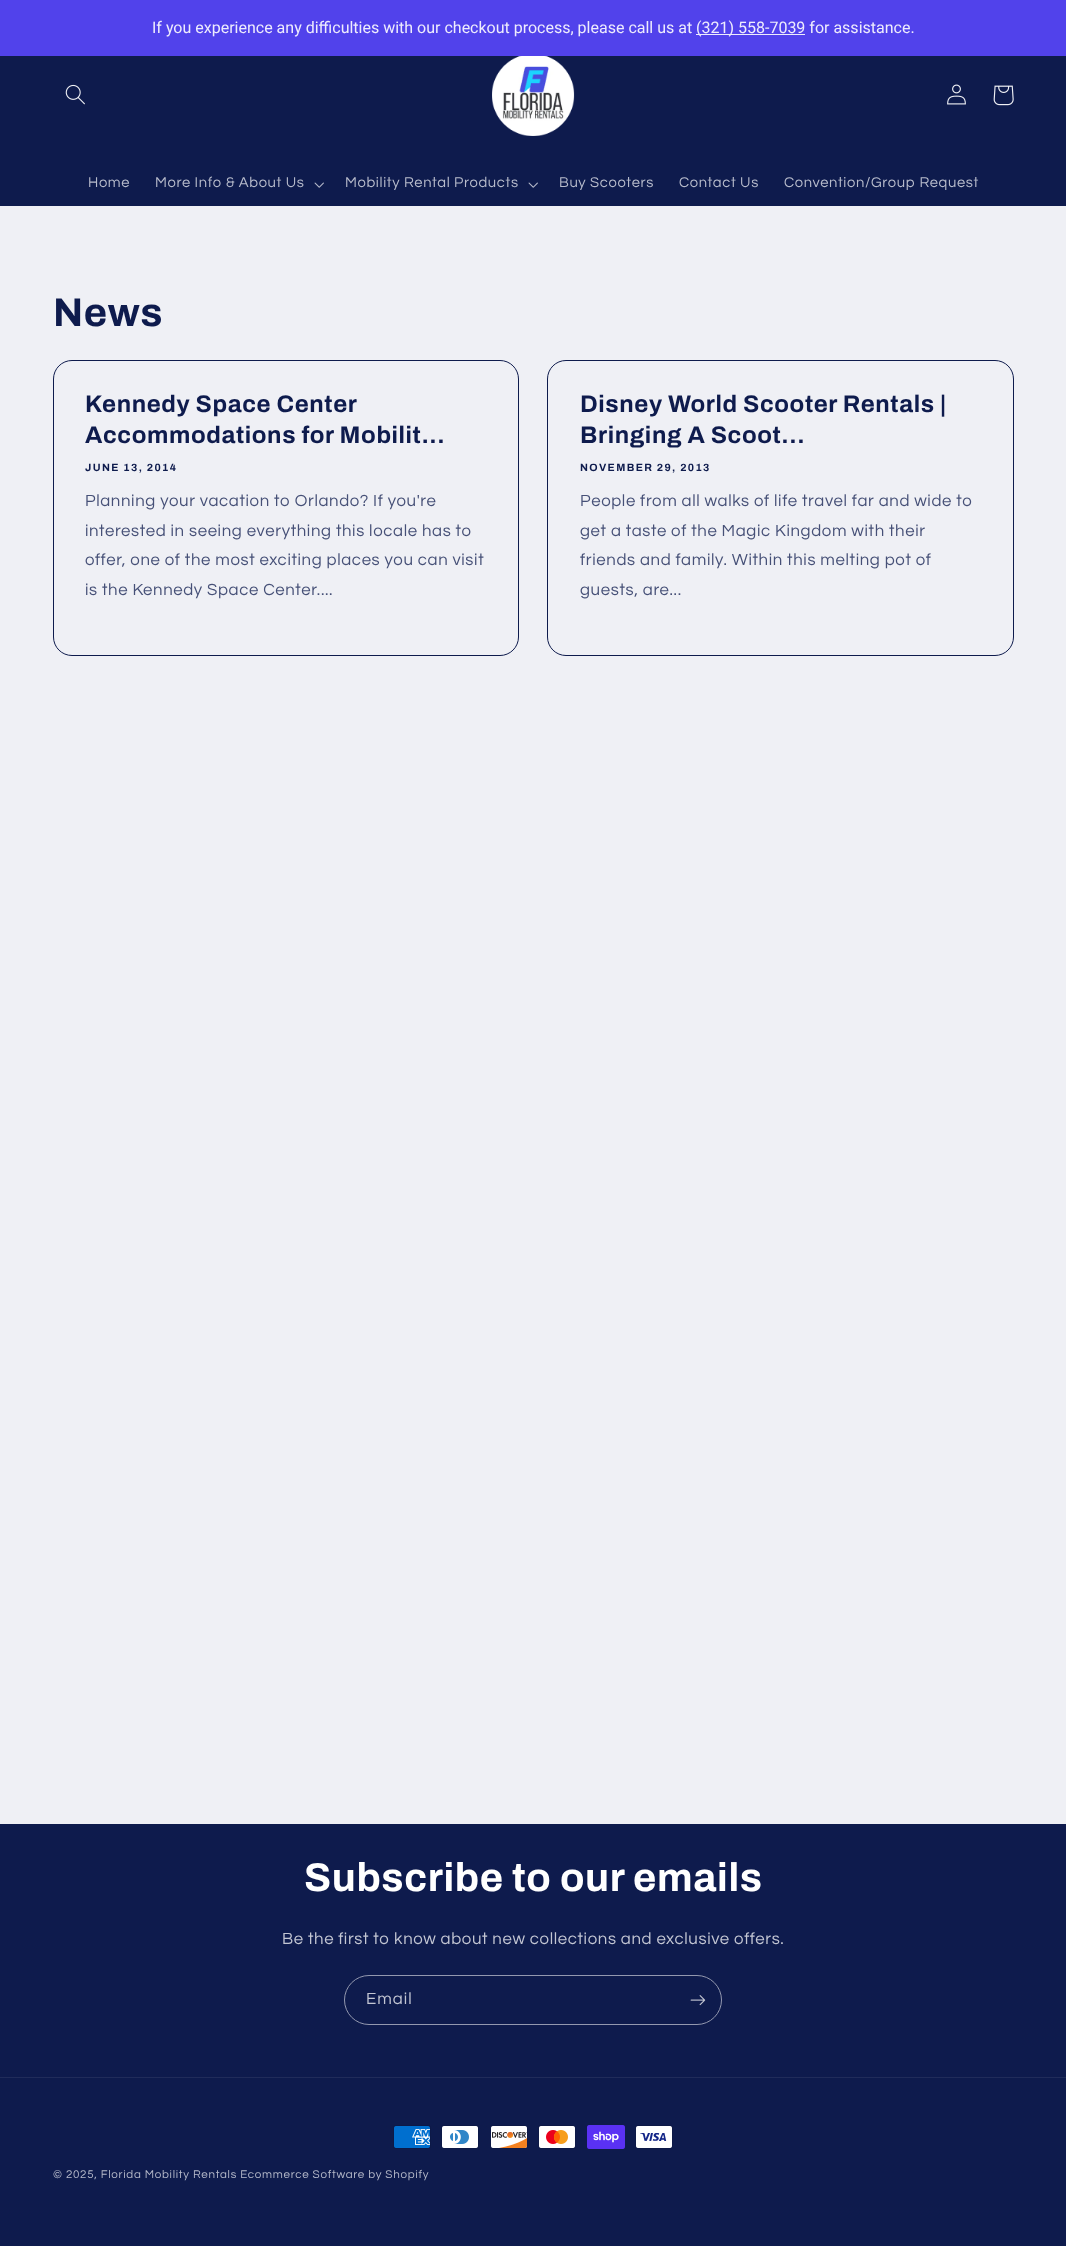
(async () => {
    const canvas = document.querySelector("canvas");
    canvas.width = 1066;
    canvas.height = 2246;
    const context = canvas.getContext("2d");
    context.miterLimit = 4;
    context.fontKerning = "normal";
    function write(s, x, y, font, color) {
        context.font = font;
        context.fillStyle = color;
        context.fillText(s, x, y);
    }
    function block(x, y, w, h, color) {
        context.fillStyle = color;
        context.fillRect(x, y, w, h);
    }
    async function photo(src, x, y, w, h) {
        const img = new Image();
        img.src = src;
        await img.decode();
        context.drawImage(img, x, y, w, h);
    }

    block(0, 0, 1066, 2246, "rgb(239, 240, 245)");
    block(0, 0, 1066, 56, "rgb(81, 66, 235)");
    write("If you experience any difficulties with our checkout process, please call us at", 152, 33, "16px Roboto", "rgb(238, 236, 253)");
    block(696, 34, 109, 1, "rgb(238, 236, 253)");
    write("(321) 558-7039 for assistance.", 696, 33, "16px Roboto", "rgb(238, 236, 253)");
    block(0, 56, 1066, 150, "rgb(14, 27, 77)");
    await photo("media/1.png", 65, 84, 20, 21);
    await photo("media/2.png", 492, 56, 83, 80);
    await photo("media/3.png", 947, 84, 19, 21);
    await photo("media/4.png", 993, 85, 21, 21);
    context.letterSpacing = "0.63px";
    write("Home", 88, 187, "14.75px Questrial", "rgb(183, 187, 203)");
    write("More Info & About Us", 155, 187, "14.75px Questrial", "rgb(183, 187, 203)");
    await photo("media/5.png", 314, 182, 10, 6);
    write("Mobility Rental Products", 345, 187, "14.75px Questrial", "rgb(183, 187, 203)");
    await photo("media/5.png", 528, 182, 10, 6);
    write("Buy Scooters", 559, 187, "14.75px Questrial", "rgb(183, 187, 203)");
    write("Contact Us", 679, 187, "14.75px Questrial", "rgb(183, 187, 203)");
    write("Convention/Group Request", 784, 187, "14.75px Questrial", "rgb(183, 187, 203)");
    context.letterSpacing = "0.6px";
    write("News", 53, 326, "bold 40px Archivo", "rgb(14, 27, 77)");
    context.beginPath();
    context.roundRect(53.5, 360.5, 465, 295, 18.5);
    context.strokeStyle = "rgb(14, 27, 77)";
    context.stroke();
    write("Kennedy Space Center", 85, 412, "bold 24px Archivo", "rgb(14, 27, 77)");
    write("Accommodations for Mobilit...", 85, 443, "bold 24px Archivo", "rgb(14, 27, 77)");
    context.letterSpacing = "1.4px";
    write("JUNE 13, 2014", 85, 471, "bold 10.5px Archivo", "rgb(14, 27, 77)");
    context.letterSpacing = "0.63px";
    write("Planning your vacation to Orlando? If you're", 85, 506, "16.8px Questrial", "rgb(70, 80, 119)");
    write("interested in seeing everything this locale has to", 85, 536, "16.8px Questrial", "rgb(70, 80, 119)");
    write("offer, one of the most exciting places you can visit", 85, 565, "16.8px Questrial", "rgb(70, 80, 119)");
    write("is the Kennedy Space Center....", 85, 595, "16.8px Questrial", "rgb(70, 80, 119)");
    context.beginPath();
    context.roundRect(547.5, 360.5, 466, 295, 18.5);
    context.stroke();
    context.letterSpacing = "0.6px";
    write("Disney World Scooter Rentals |", 580, 412, "bold 24px Archivo", "rgb(14, 27, 77)");
    write("Bringing A Scoot...", 580, 443, "bold 24px Archivo", "rgb(14, 27, 77)");
    context.letterSpacing = "1.4px";
    write("NOVEMBER 29, 2013", 580, 471, "bold 10.5px Archivo", "rgb(14, 27, 77)");
    context.letterSpacing = "0.63px";
    write("People from all walks of life travel far and wide to", 580, 506, "16.8px Questrial", "rgb(70, 80, 119)");
    write("get a taste of the Magic Kingdom with their", 580, 536, "16.8px Questrial", "rgb(70, 80, 119)");
    write("friends and family. Within this melting pot of", 580, 565, "16.8px Questrial", "rgb(70, 80, 119)");
    write("guests, are...", 580, 595, "16.8px Questrial", "rgb(70, 80, 119)");
    block(0, 1824, 1066, 422, "rgb(14, 27, 77)");
    context.letterSpacing = "0.6px";
    write("Subscribe to our emails", 304, 1891, "bold 40px Archivo", "rgb(255, 255, 255)");
    context.letterSpacing = "0.63px";
    write("Be the first to know about new collections and exclusive offers.", 282, 1944, "16.8px Questrial", "rgb(195, 198, 211)");
    context.beginPath();
    context.roundRect(344.5, 1975.5, 377, 49, 24.5);
    context.strokeStyle = "rgb(147, 152, 175)";
    context.stroke();
    context.letterSpacing = "1px";
    write("Email", 366, 2004, "16.8px Questrial", "rgb(195, 198, 211)");
    await photo("media/6.png", 690, 1995, 16, 11);
    block(0, 2077, 1066, 1, "rgb(32, 44, 90)");
    await photo("media/7.png", 393, 2125, 38, 24);
    await photo("media/8.png", 441, 2125, 38, 24);
    await photo("media/9.png", 490, 2125, 38, 24);
    await photo("media/10.png", 538, 2125, 38, 24);
    await photo("media/11.png", 587, 2125, 38, 24);
    await photo("media/12.png", 635, 2125, 38, 24);
    context.letterSpacing = "0.73px";
    write("© 2025, Florida Mobility Rentals Ecommerce Software by Shopify", 53, 2178, "11.55px Questrial", "rgb(183, 187, 203)");
})();
